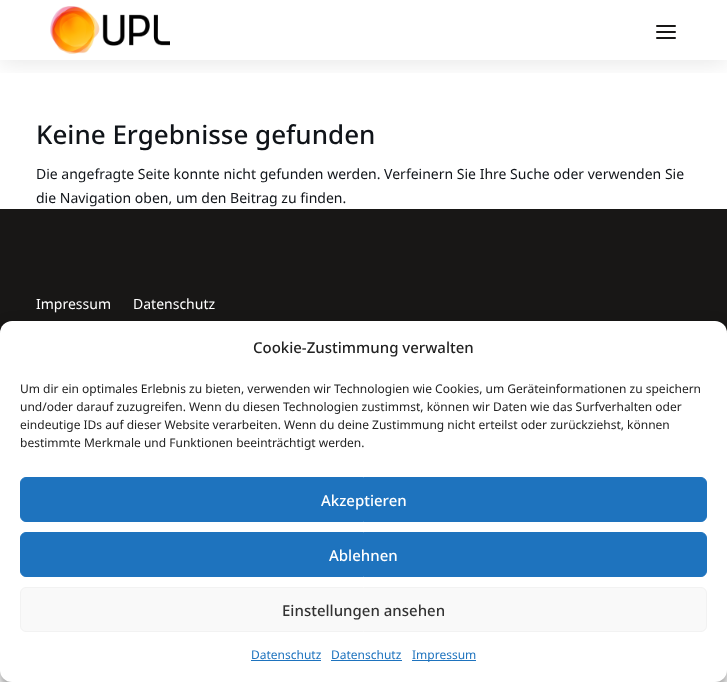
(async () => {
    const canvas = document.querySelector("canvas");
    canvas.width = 727;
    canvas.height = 682;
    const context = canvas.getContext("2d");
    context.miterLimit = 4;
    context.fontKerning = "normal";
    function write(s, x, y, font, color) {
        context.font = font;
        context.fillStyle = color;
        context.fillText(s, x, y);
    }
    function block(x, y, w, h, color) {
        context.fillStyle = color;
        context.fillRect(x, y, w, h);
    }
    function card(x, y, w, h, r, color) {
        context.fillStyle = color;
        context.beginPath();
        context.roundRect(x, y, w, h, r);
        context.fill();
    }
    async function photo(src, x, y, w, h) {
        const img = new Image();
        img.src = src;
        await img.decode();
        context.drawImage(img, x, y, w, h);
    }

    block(0, 0, 727, 682, "rgb(255, 255, 255)");
    context.save();
    context.beginPath();
    context.rect(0, 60, 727, 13);
    context.clip();
    context.fillStyle = "rgba(0, 0, 0, 0.1)";
    context.filter = "blur(12.5px)";
    context.beginPath();
    context.rect(0, 2, 727, 60);
    context.fill();
    context.filter = "none";
    context.restore();
    await photo("media/1.png", 50, 6, 120, 48);
    card(656, 25, 20, 2, 1, "rgb(24, 23, 22)");
    card(656, 31, 20, 2, 1, "rgb(24, 23, 22)");
    card(656, 37, 20, 2, 1, "rgb(24, 23, 22)");
    write("Keine Ergebnisse gefunden", 36, 144, "500 26px Noto Sans", "rgb(16, 20, 25)");
    write("Die angefragte Seite konnte nicht gefunden werden. Verfeinern Sie Ihre Suche oder verwenden Sie", 36, 179, "14px Noto Sans", "rgb(16, 20, 25)");
    write("die Navigation oben, um den Beitrag zu finden.", 36, 203, "14px Noto Sans", "rgb(16, 20, 25)");
    block(0, 209, 727, 124, "rgb(24, 23, 22)");
    write("Impressum", 36, 309, "14px Noto Sans", "rgb(255, 255, 255)");
    write("Datenschutz", 133, 309, "14px Noto Sans", "rgb(255, 255, 255)");
    context.fillStyle = "rgba(0, 0, 0, 0.23)";
    context.filter = "blur(3px)";
    context.beginPath();
    context.roundRect(0, 327, 727, 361, 12);
    context.fill();
    context.filter = "none";
    context.fillStyle = "rgba(0, 0, 0, 0.19)";
    context.filter = "blur(10px)";
    context.beginPath();
    context.roundRect(0, 331, 727, 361, 12);
    context.fill();
    context.filter = "none";
    card(0, 321, 727, 361, 12, "rgb(255, 255, 255)");
    write("Cookie-Zustimmung verwalten", 253, 353, "500 15px Noto Sans", "rgb(34, 34, 34)");
    write("Um dir ein optimales Erlebnis zu bieten, verwenden wir Technologien wie Cookies, um Geräteinformationen zu speichern", 20, 393, "12px Noto Sans", "rgb(34, 34, 34)");
    write("und/oder darauf zuzugreifen. Wenn du diesen Technologien zustimmst, können wir Daten wie das Surfverhalten oder", 20, 411, "12px Noto Sans", "rgb(34, 34, 34)");
    write("eindeutige IDs auf dieser Website verarbeiten. Wenn du deine Zustimmung nicht erteilst oder zurückziehst, können", 20, 429, "12px Noto Sans", "rgb(34, 34, 34)");
    write("bestimmte Merkmale und Funktionen beeinträchtigt werden.", 20, 447, "12px Noto Sans", "rgb(34, 34, 34)");
    context.fillStyle = "rgb(30, 115, 190)";
    context.beginPath();
    context.roundRect(20.5, 477.5, 686, 44, 5.5);
    context.fill();
    context.strokeStyle = "rgb(30, 115, 190)";
    context.stroke();
    write("Akzeptieren", 321, 506, "500 15px Noto Sans", "rgb(255, 255, 255)");
    context.fillStyle = "rgb(30, 115, 190)";
    context.beginPath();
    context.roundRect(20.5, 532.5, 686, 44, 5.5);
    context.fill();
    context.stroke();
    write("Ablehnen", 329, 561, "500 15px Noto Sans", "rgb(255, 255, 255)");
    context.fillStyle = "rgb(249, 249, 249)";
    context.beginPath();
    context.roundRect(20.5, 587.5, 686, 44, 5.5);
    context.fill();
    context.strokeStyle = "rgb(242, 242, 242)";
    context.stroke();
    write("Einstellungen ansehen", 282, 616, "500 15px Noto Sans", "rgb(51, 51, 51)");
    write("Datenschutz", 251, 659, "12px Noto Sans", "rgb(30, 115, 190)");
    block(251, 660, 70, 1, "rgb(30, 115, 190)");
    write("Datenschutz", 331, 659, "12px Noto Sans", "rgb(30, 115, 190)");
    block(331, 660, 71, 1, "rgb(30, 115, 190)");
    block(412, 660, 64, 1, "rgb(30, 115, 190)");
    write("Impressum", 412, 659, "12px Noto Sans", "rgb(30, 115, 190)");
})();
